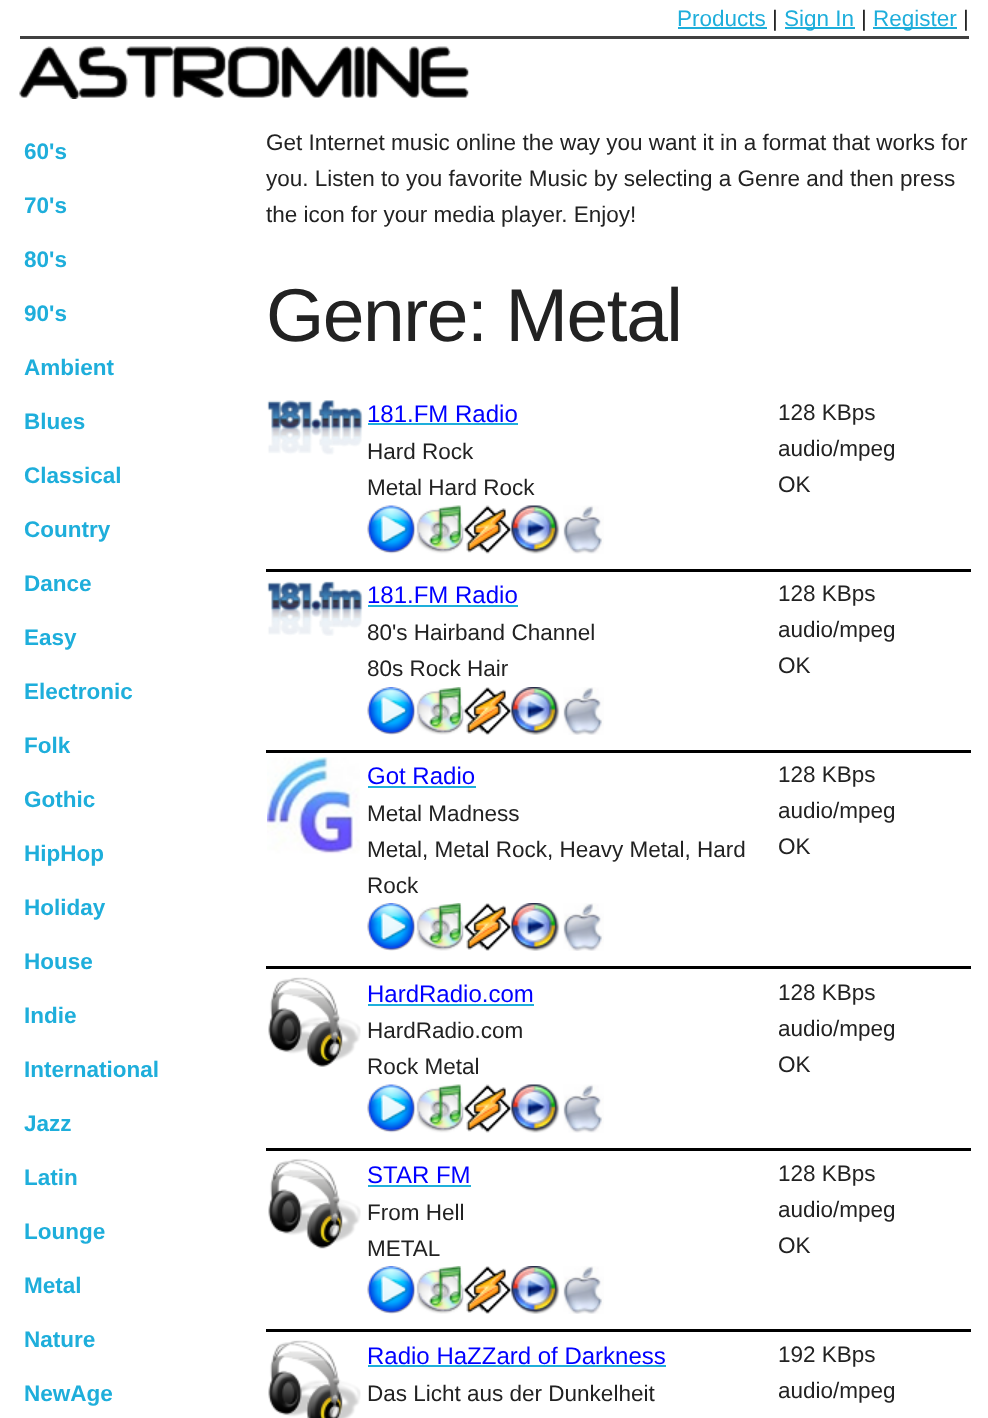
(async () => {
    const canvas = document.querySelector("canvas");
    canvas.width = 988;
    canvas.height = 1418;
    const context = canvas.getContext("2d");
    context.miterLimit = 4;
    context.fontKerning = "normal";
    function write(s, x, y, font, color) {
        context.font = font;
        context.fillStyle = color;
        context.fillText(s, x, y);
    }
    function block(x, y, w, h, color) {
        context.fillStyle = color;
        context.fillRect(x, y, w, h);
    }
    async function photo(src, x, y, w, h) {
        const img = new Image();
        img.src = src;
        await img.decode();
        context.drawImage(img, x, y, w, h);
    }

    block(0, 0, 988, 1418, "rgb(255, 255, 255)");
    write("Products", 677, 26, "22.5px Liberation Sans", "rgb(30, 174, 219)");
    block(678, 27, 89, 2, "rgb(30, 174, 219)");
    write("|", 772, 26, "22.5px Liberation Sans", "rgb(34, 34, 34)");
    block(785, 27, 70, 2, "rgb(30, 174, 219)");
    write("Sign In", 784, 26, "22.5px Liberation Sans", "rgb(30, 174, 219)");
    write("|", 861, 26, "22.5px Liberation Sans", "rgb(34, 34, 34)");
    block(873, 27, 84, 2, "rgb(30, 174, 219)");
    write("Register", 873, 26, "22.5px Liberation Sans", "rgb(30, 174, 219)");
    write("|", 963, 26, "22.5px Liberation Sans", "rgb(34, 34, 34)");
    block(20, 36, 949, 3, "rgb(64, 64, 64)");
    await photo("media/1.png", 19, 46, 451, 53);
    write("60's", 24, 159, "bold 22.5px Liberation Sans", "rgb(30, 174, 219)");
    write("70's", 24, 213, "bold 22.5px Liberation Sans", "rgb(30, 174, 219)");
    write("80's", 24, 267, "bold 22.5px Liberation Sans", "rgb(30, 174, 219)");
    write("90's", 24, 321, "bold 22.5px Liberation Sans", "rgb(30, 174, 219)");
    write("Ambient", 24, 375, "bold 22.5px Liberation Sans", "rgb(30, 174, 219)");
    write("Blues", 24, 429, "bold 22.5px Liberation Sans", "rgb(30, 174, 219)");
    write("Classical", 24, 483, "bold 22.5px Liberation Sans", "rgb(30, 174, 219)");
    write("Country", 24, 537, "bold 22.5px Liberation Sans", "rgb(30, 174, 219)");
    write("Dance", 24, 591, "bold 22.5px Liberation Sans", "rgb(30, 174, 219)");
    write("Easy", 24, 645, "bold 22.5px Liberation Sans", "rgb(30, 174, 219)");
    write("Electronic", 24, 699, "bold 22.5px Liberation Sans", "rgb(30, 174, 219)");
    write("Folk", 24, 753, "bold 22.5px Liberation Sans", "rgb(30, 174, 219)");
    write("Gothic", 24, 807, "bold 22.5px Liberation Sans", "rgb(30, 174, 219)");
    write("HipHop", 24, 861, "bold 22.5px Liberation Sans", "rgb(30, 174, 219)");
    write("Holiday", 24, 915, "bold 22.5px Liberation Sans", "rgb(30, 174, 219)");
    write("House", 24, 969, "bold 22.5px Liberation Sans", "rgb(30, 174, 219)");
    write("Indie", 24, 1023, "bold 22.5px Liberation Sans", "rgb(30, 174, 219)");
    write("International", 24, 1077, "bold 22.5px Liberation Sans", "rgb(30, 174, 219)");
    write("Jazz", 24, 1131, "bold 22.5px Liberation Sans", "rgb(30, 174, 219)");
    write("Latin", 24, 1185, "bold 22.5px Liberation Sans", "rgb(30, 174, 219)");
    write("Lounge", 24, 1239, "bold 22.5px Liberation Sans", "rgb(30, 174, 219)");
    write("Metal", 24, 1293, "bold 22.5px Liberation Sans", "rgb(30, 174, 219)");
    write("Nature", 24, 1347, "bold 22.5px Liberation Sans", "rgb(30, 174, 219)");
    write("NewAge", 24, 1401, "bold 22.5px Liberation Sans", "rgb(30, 174, 219)");
    write("Get Internet music online the way you want it in a format that works for", 266, 150, "22.5px Liberation Sans", "rgb(34, 34, 34)");
    write("you. Listen to you favorite Music by selecting a Genre and then press", 266, 186, "22.5px Liberation Sans", "rgb(34, 34, 34)");
    write("the icon for your media player. Enjoy!", 266, 222, "22.5px Liberation Sans", "rgb(34, 34, 34)");
    context.letterSpacing = "-1.5px";
    write("Genre: Metal", 266, 341, "75px Liberation Sans", "rgb(34, 34, 34)");
    await photo("media/2.png", 267, 400, 96, 55);
    context.letterSpacing = "0px";
    write("181.FM Radio", 367, 422, "24px Liberation Sans", "rgb(0, 0, 255)");
    block(368, 423, 150, 2, "rgb(30, 174, 219)");
    write("Hard Rock", 367, 459, "22.5px Liberation Sans", "rgb(34, 34, 34)");
    write("Metal Hard Rock", 367, 495, "22.5px Liberation Sans", "rgb(34, 34, 34)");
    await photo("media/3.png", 367, 505, 49, 49);
    await photo("media/4.png", 415, 505, 49, 49);
    await photo("media/5.png", 463, 505, 49, 49);
    await photo("media/6.png", 511, 505, 49, 49);
    await photo("media/7.png", 559, 505, 45, 49);
    block(266, 569, 705, 3, "rgb(0, 0, 0)");
    write("128 KBps", 778, 420, "22.5px Liberation Sans", "rgb(34, 34, 34)");
    write("audio/mpeg", 778, 456, "22.5px Liberation Sans", "rgb(34, 34, 34)");
    write("OK", 778, 492, "22.5px Liberation Sans", "rgb(34, 34, 34)");
    await photo("media/8.png", 267, 581, 96, 55);
    write("181.FM Radio", 367, 603, "24px Liberation Sans", "rgb(0, 0, 255)");
    block(368, 605, 150, 2, "rgb(30, 174, 219)");
    write("80's Hairband Channel", 367, 640, "22.5px Liberation Sans", "rgb(34, 34, 34)");
    write("80s Rock Hair", 367, 676, "22.5px Liberation Sans", "rgb(34, 34, 34)");
    await photo("media/9.png", 367, 687, 49, 48);
    await photo("media/10.png", 415, 687, 49, 48);
    await photo("media/11.png", 463, 687, 49, 48);
    await photo("media/12.png", 511, 687, 49, 48);
    await photo("media/13.png", 559, 687, 45, 48);
    block(266, 750, 705, 3, "rgb(0, 0, 0)");
    write("128 KBps", 778, 601, "22.5px Liberation Sans", "rgb(34, 34, 34)");
    write("audio/mpeg", 778, 637, "22.5px Liberation Sans", "rgb(34, 34, 34)");
    write("OK", 778, 673, "22.5px Liberation Sans", "rgb(34, 34, 34)");
    await photo("media/14.png", 267, 757, 93, 97);
    write("Got Radio", 367, 784, "24px Liberation Sans", "rgb(0, 0, 255)");
    block(368, 786, 108, 2, "rgb(30, 174, 219)");
    write("Metal Madness", 367, 821, "22.5px Liberation Sans", "rgb(34, 34, 34)");
    write("Metal, Metal Rock, Heavy Metal, Hard", 367, 857, "22.5px Liberation Sans", "rgb(34, 34, 34)");
    write("Rock", 367, 893, "22.5px Liberation Sans", "rgb(34, 34, 34)");
    await photo("media/9.png", 367, 903, 49, 48);
    await photo("media/10.png", 415, 903, 49, 48);
    await photo("media/11.png", 463, 903, 49, 48);
    await photo("media/12.png", 511, 903, 49, 48);
    await photo("media/13.png", 559, 903, 45, 48);
    block(266, 966, 705, 3, "rgb(0, 0, 0)");
    write("128 KBps", 778, 782, "22.5px Liberation Sans", "rgb(34, 34, 34)");
    write("audio/mpeg", 778, 818, "22.5px Liberation Sans", "rgb(34, 34, 34)");
    write("OK", 778, 854, "22.5px Liberation Sans", "rgb(34, 34, 34)");
    await photo("media/15.png", 268, 977, 93, 90);
    write("HardRadio.com", 367, 1002, "24px Liberation Sans", "rgb(0, 0, 255)");
    block(368, 1004, 166, 2, "rgb(30, 174, 219)");
    write("HardRadio.com", 367, 1038, "22.5px Liberation Sans", "rgb(34, 34, 34)");
    write("Rock Metal", 367, 1074, "22.5px Liberation Sans", "rgb(34, 34, 34)");
    await photo("media/3.png", 367, 1084, 49, 49);
    await photo("media/4.png", 415, 1084, 49, 49);
    await photo("media/5.png", 463, 1084, 49, 49);
    await photo("media/6.png", 511, 1084, 49, 49);
    await photo("media/7.png", 559, 1084, 45, 49);
    block(266, 1148, 705, 3, "rgb(0, 0, 0)");
    write("128 KBps", 778, 1000, "22.5px Liberation Sans", "rgb(34, 34, 34)");
    write("audio/mpeg", 778, 1036, "22.5px Liberation Sans", "rgb(34, 34, 34)");
    write("OK", 778, 1072, "22.5px Liberation Sans", "rgb(34, 34, 34)");
    await photo("media/16.png", 268, 1158, 93, 91);
    write("STAR FM", 367, 1183, "24px Liberation Sans", "rgb(0, 0, 255)");
    block(368, 1185, 103, 2, "rgb(30, 174, 219)");
    write("From Hell", 367, 1220, "22.5px Liberation Sans", "rgb(34, 34, 34)");
    write("METAL", 367, 1256, "22.5px Liberation Sans", "rgb(34, 34, 34)");
    await photo("media/9.png", 367, 1266, 49, 48);
    await photo("media/10.png", 415, 1266, 49, 48);
    await photo("media/11.png", 463, 1266, 49, 48);
    await photo("media/12.png", 511, 1266, 49, 48);
    await photo("media/13.png", 559, 1266, 45, 48);
    block(266, 1329, 705, 3, "rgb(0, 0, 0)");
    write("128 KBps", 778, 1181, "22.5px Liberation Sans", "rgb(34, 34, 34)");
    write("audio/mpeg", 778, 1217, "22.5px Liberation Sans", "rgb(34, 34, 34)");
    write("OK", 778, 1253, "22.5px Liberation Sans", "rgb(34, 34, 34)");
    await photo("media/17.png", 268, 1340, 93, 78);
    write("Radio HaZZard of Darkness", 367, 1364, "24px Liberation Sans", "rgb(0, 0, 255)");
    block(368, 1365, 298, 2, "rgb(30, 174, 219)");
    write("Das Licht aus der Dunkelheit", 367, 1401, "22.5px Liberation Sans", "rgb(34, 34, 34)");
    write("192 KBps", 778, 1362, "22.5px Liberation Sans", "rgb(34, 34, 34)");
    write("audio/mpeg", 778, 1398, "22.5px Liberation Sans", "rgb(34, 34, 34)");
})();
